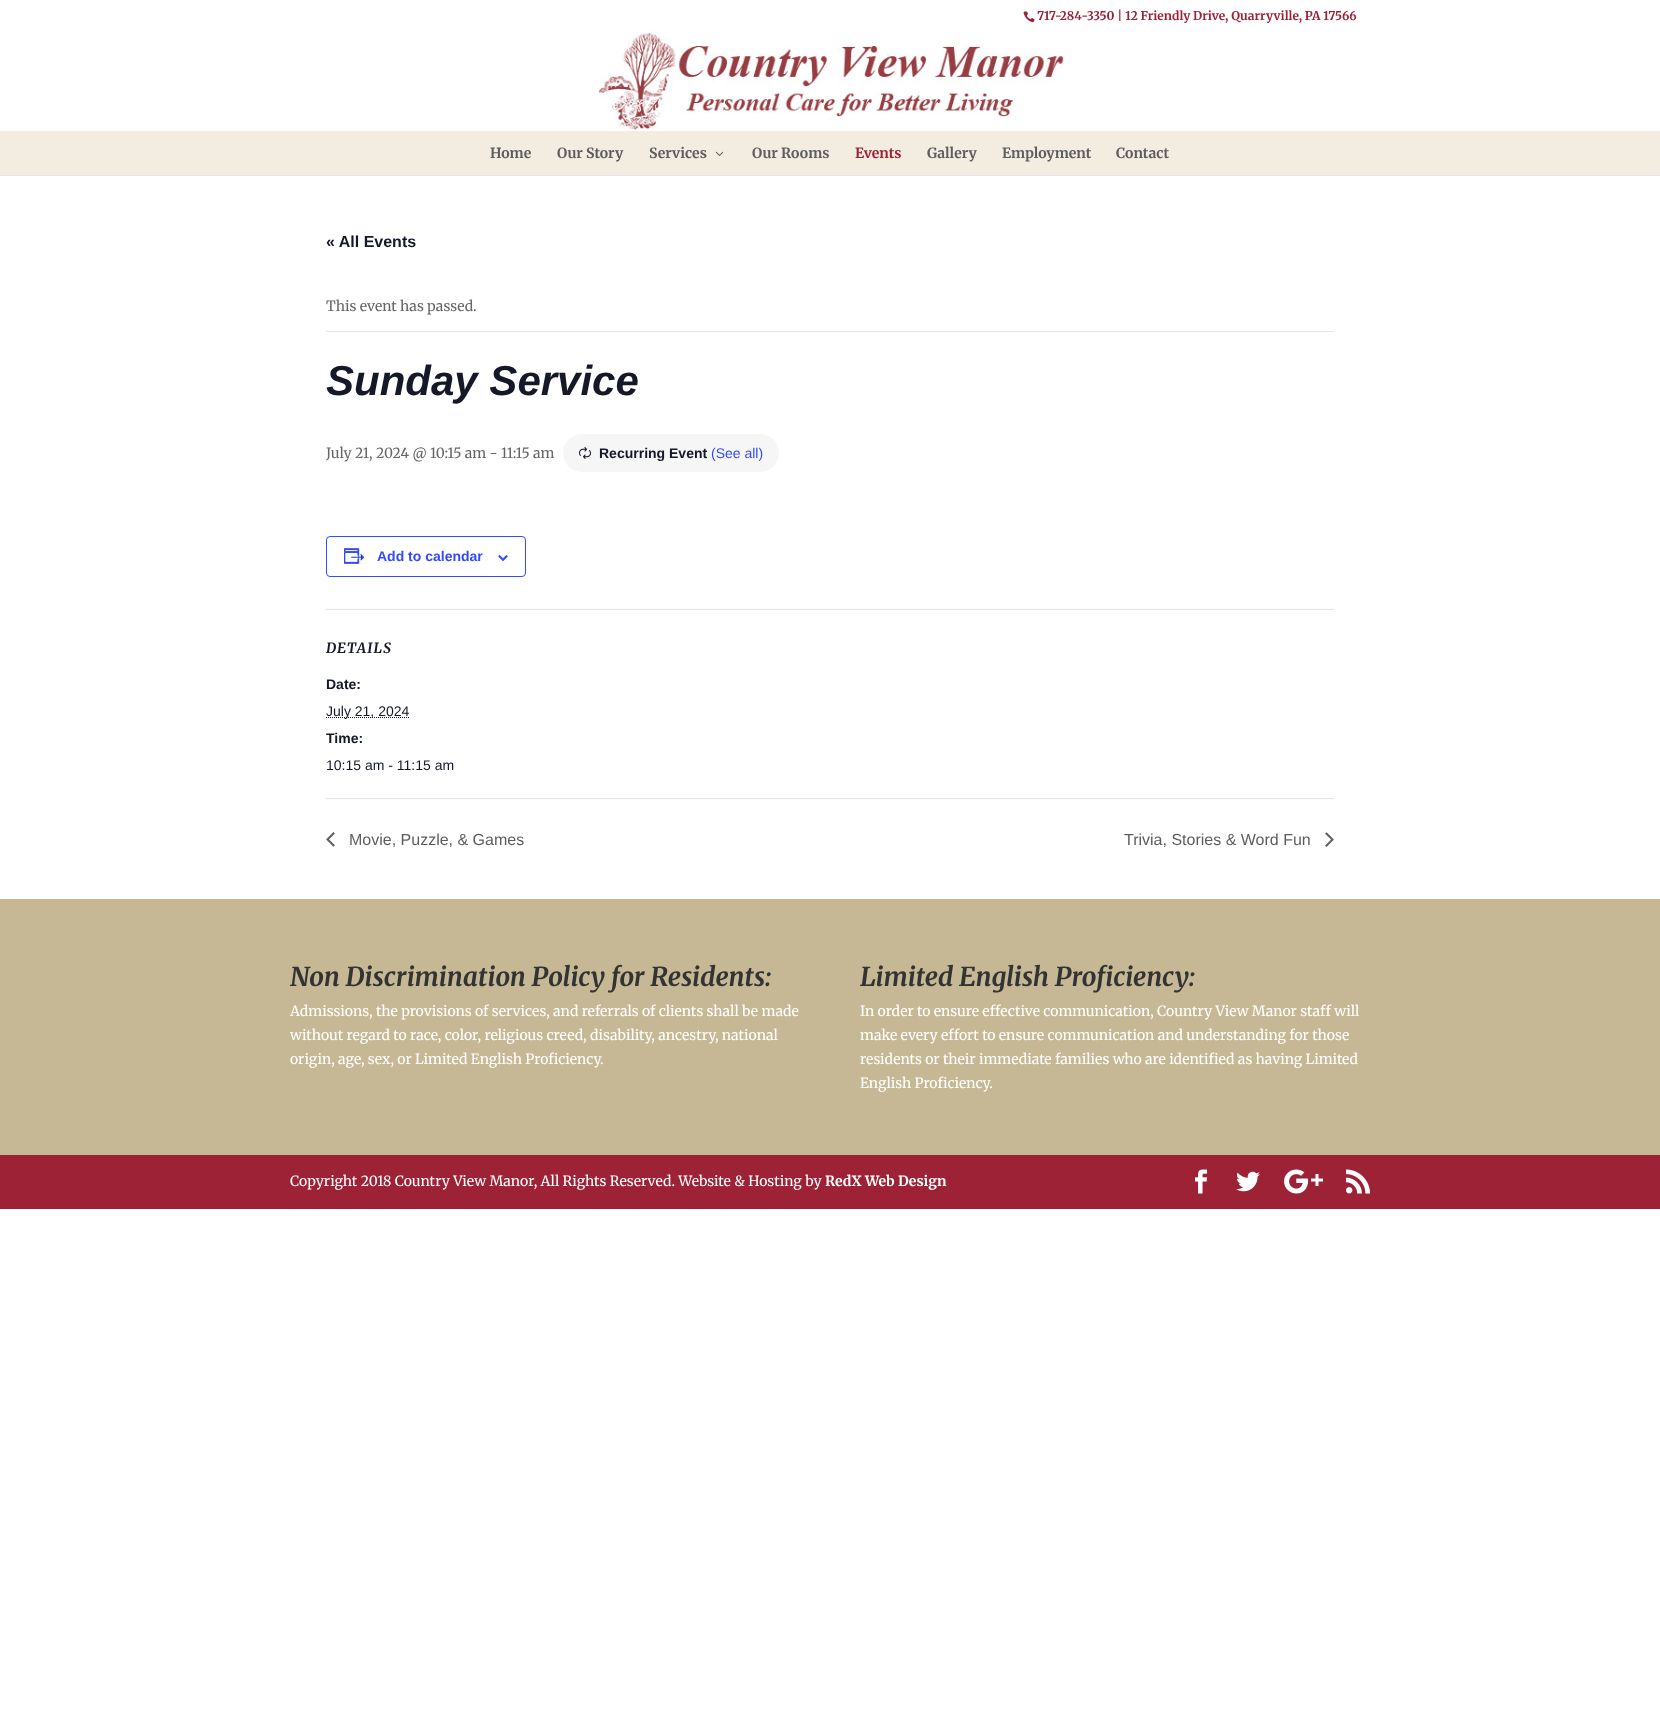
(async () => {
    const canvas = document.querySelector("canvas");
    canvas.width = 1660;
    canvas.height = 1728;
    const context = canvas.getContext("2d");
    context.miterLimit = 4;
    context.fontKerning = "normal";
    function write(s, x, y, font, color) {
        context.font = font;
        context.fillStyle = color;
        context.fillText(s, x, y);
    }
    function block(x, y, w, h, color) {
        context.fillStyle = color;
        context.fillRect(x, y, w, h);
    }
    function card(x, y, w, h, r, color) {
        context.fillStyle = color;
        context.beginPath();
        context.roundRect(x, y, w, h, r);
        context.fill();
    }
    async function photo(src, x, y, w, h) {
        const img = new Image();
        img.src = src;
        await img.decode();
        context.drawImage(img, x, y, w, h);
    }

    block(0, 0, 1660, 1728, "rgb(255, 255, 255)");
    await photo("media/1.png", 1023, 11, 12, 12);
    write("717-284-3350 | 12 Friendly Drive, Quarryville, PA 17566", 1037, 20, "bold 12px Merriweather", "rgb(157, 34, 54)");
    block(0, 175, 1660, 1, "rgb(230, 230, 230)");
    await photo("media/2.png", 598, 31, 467, 100);
    block(0, 131, 1660, 44, "rgb(243, 236, 224)");
    write("Home", 490, 158, "bold 14px Merriweather", "rgb(93, 93, 93)");
    write("Our Story", 557, 158, "bold 14px Merriweather", "rgb(93, 93, 93)");
    write("Services", 649, 158, "bold 14px Merriweather", "rgb(93, 93, 93)");
    await photo("media/3.png", 715, 151, 9, 5);
    write("Our Rooms", 752, 158, "bold 14px Merriweather", "rgb(93, 93, 93)");
    write("Events", 855, 158, "bold 14px Merriweather", "rgb(157, 34, 54)");
    write("Gallery", 927, 158, "bold 14px Merriweather", "rgb(93, 93, 93)");
    write("Employment", 1002, 158, "bold 14px Merriweather", "rgb(93, 93, 93)");
    write("Contact", 1116, 158, "bold 14px Merriweather", "rgb(93, 93, 93)");
    write("« All Events", 326, 247, "bold 16px Liberation Sans", "rgb(20, 24, 39)");
    block(326, 331, 1008, 1, "rgb(228, 228, 228)");
    write("This event has passed.", 326, 311, "14px Merriweather", "rgb(102, 102, 102)");
    write("Sunday Service", 326, 395, "italic bold 42px Liberation Sans", "rgb(20, 24, 39)");
    write("July 21, 2024 @ 10:15 am - 11:15 am", 326, 458, "14px Merriweather", "rgb(102, 102, 102)");
    card(563, 434, 216, 38, 19, "rgb(247, 246, 246)");
    await photo("media/4.png", 579, 447, 12, 12);
    write("Recurring Event", 599, 458, "bold 14px Liberation Sans", "rgb(20, 24, 39)");
    write("(See all)", 711, 458, "14px Liberation Sans", "rgb(51, 74, 255)");
    context.beginPath();
    context.roundRect(326.5, 536.5, 199, 40, 3.5);
    context.strokeStyle = "rgb(51, 74, 255)";
    context.stroke();
    await photo("media/5.png", 344, 548, 21, 16);
    write("Add to calendar", 377, 561, "bold 14px Liberation Sans", "rgb(51, 74, 255)");
    await photo("media/6.png", 498, 555, 10, 6);
    block(326, 609, 1008, 1, "rgb(228, 228, 228)");
    context.letterSpacing = "1px";
    write("DETAILS", 326, 653, "italic bold 14px Merriweather", "rgb(20, 24, 39)");
    context.letterSpacing = "0px";
    write("Date:", 326, 689, "bold 14px Liberation Sans", "rgb(20, 24, 39)");
    context.beginPath();
    context.moveTo(326, 717.5);
    context.lineTo(409.5, 717.5);
    context.strokeStyle = "rgb(20, 24, 39)";
    context.setLineDash([1, 1]);
    context.stroke();
    write("July 21, 2024", 326, 716, "14px Liberation Sans", "rgb(20, 24, 39)");
    write("Time:", 326, 743, "bold 14px Liberation Sans", "rgb(20, 24, 39)");
    write("10:15 am - 11:15 am", 326, 770, "14px Liberation Sans", "rgb(20, 24, 39)");
    block(326, 798, 1008, 1, "rgb(228, 228, 228)");
    await photo("media/7.png", 326, 832, 9, 15);
    write("Movie, Puzzle, & Games", 349, 845, "16px Liberation Sans", "rgb(93, 93, 93)");
    write("Trivia, Stories & Word Fun", 1124, 845, "16px Liberation Sans", "rgb(93, 93, 93)");
    await photo("media/8.png", 1325, 832, 9, 15);
    block(0, 899, 1660, 256, "rgb(198, 184, 149)");
    write("Non Discrimination Policy for Residents:", 290, 986, "italic bold 26px Merriweather", "rgb(51, 51, 51)");
    write("Admissions, the provisions of services, and referrals of clients shall be made", 290, 1016, "14px Merriweather", "rgb(255, 255, 255)");
    write("without regard to race, color, religious creed, disability, ancestry, national", 290, 1040, "14px Merriweather", "rgb(255, 255, 255)");
    write("origin, age, sex, or Limited English Proficiency.", 290, 1064, "14px Merriweather", "rgb(255, 255, 255)");
    write("Limited English Proficiency:", 860, 986, "italic bold 26px Merriweather", "rgb(51, 51, 51)");
    write("In order to ensure effective communication, Country View Manor staff will", 860, 1016, "14px Merriweather", "rgb(255, 255, 255)");
    write("make every effort to ensure communication and understanding for those", 860, 1040, "14px Merriweather", "rgb(255, 255, 255)");
    write("residents or their immediate families who are identified as having Limited", 860, 1064, "14px Merriweather", "rgb(255, 255, 255)");
    write("English Proficiency.", 860, 1088, "14px Merriweather", "rgb(255, 255, 255)");
    block(0, 1155, 1660, 54, "rgb(157, 34, 53)");
    write("Copyright 2018 Country View Manor, All Rights Reserved. Website & Hosting by", 290, 1186, "14px Merriweather", "rgb(255, 255, 255)");
    write("RedX Web Design", 825, 1186, "bold 14px Merriweather", "rgb(255, 255, 255)");
    await photo("media/9.png", 1195, 1169, 13, 25);
    await photo("media/10.png", 1236, 1171, 24, 21);
    await photo("media/11.png", 1284, 1169, 39, 25);
    await photo("media/12.png", 1346, 1169, 24, 25);
})();
